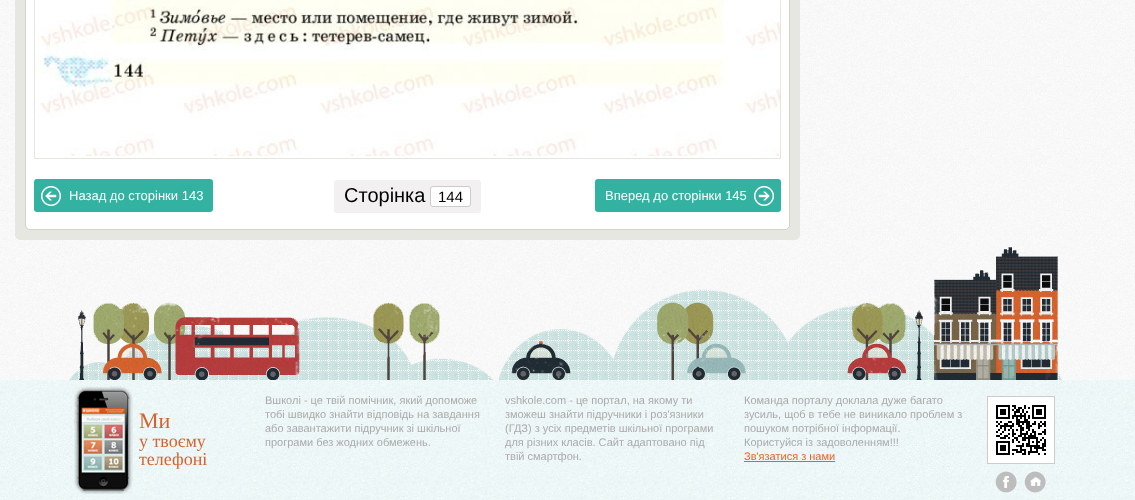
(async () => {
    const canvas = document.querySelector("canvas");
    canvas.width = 1135;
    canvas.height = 500;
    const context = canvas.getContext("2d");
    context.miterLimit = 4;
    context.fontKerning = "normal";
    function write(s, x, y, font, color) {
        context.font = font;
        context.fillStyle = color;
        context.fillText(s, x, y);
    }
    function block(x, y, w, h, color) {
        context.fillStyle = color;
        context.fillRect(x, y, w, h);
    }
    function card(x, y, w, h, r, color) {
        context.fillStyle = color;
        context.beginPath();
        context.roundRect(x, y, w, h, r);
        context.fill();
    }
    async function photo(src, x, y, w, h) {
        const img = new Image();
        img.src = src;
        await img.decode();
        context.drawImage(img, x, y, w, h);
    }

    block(0, 0, 1135, 500, "rgb(255, 255, 255)");
    await photo("media/1.png", 0, 0, 1135, 380);
    card(15, -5, 785, 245, 5, "rgb(231, 231, 226)");
    context.fillStyle = "rgb(255, 255, 255)";
    context.beginPath();
    context.roundRect(25.5, -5.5, 764, 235, 4.5);
    context.fill();
    context.strokeStyle = "rgb(211, 211, 199)";
    context.stroke();
    context.strokeStyle = "rgb(230, 230, 220)";
    context.strokeRect(34.5, -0.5, 746, 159);
    await photo("media/2.png", 35, 0, 745, 156);
    card(34, 179, 179, 33, 3, "rgb(52, 178, 161)");
    await photo("media/3.png", 41, 186, 20, 20);
    write("Назад до сторінки 143", 69, 200, "13px Liberation Sans", "rgb(255, 255, 255)");
    card(334, 180, 147, 33, 3, "rgb(242, 240, 240)");
    write("Сторінка", 344, 202, "20px Liberation Sans", "rgb(0, 0, 0)");
    context.fillStyle = "rgb(255, 255, 255)";
    context.beginPath();
    context.roundRect(430.5, 186.5, 40, 20, 2.5);
    context.fill();
    context.strokeStyle = "rgb(204, 204, 204)";
    context.stroke();
    write("144", 438, 202, "15px Liberation Sans", "rgb(0, 0, 0)");
    card(595, 179, 186, 33, 3, "rgb(52, 178, 161)");
    write("Вперед до сторінки 145", 605, 200, "13px Liberation Sans", "rgb(255, 255, 255)");
    await photo("media/4.png", 754, 186, 20, 20);
    await photo("media/5.png", 0, 380, 1135, 120);
    await photo("media/7.png", 68, 260, 998, 120);
    await photo("media/6.png", 77, 247, 981, 133);
    await photo("media/8.png", 74, 386, 59, 108);
    write("Ми", 139, 428, "22px Liberation Serif", "rgb(212, 99, 45)");
    write("у твоєму", 139, 447, "18px Liberation Serif", "rgb(212, 99, 45)");
    write("телефоні", 139, 465, "18px Liberation Serif", "rgb(212, 99, 45)");
    write("Вшколі - це твій помічник, який допоможе", 265, 404, "11px Liberation Sans", "rgb(171, 170, 170)");
    write("тобі швидко знайти відповідь на завдання", 265, 418, "11px Liberation Sans", "rgb(171, 170, 170)");
    write("або завантажити підручник зі шкільної", 265, 432, "11px Liberation Sans", "rgb(171, 170, 170)");
    write("програми без жодних обмежень.", 265, 446, "11px Liberation Sans", "rgb(171, 170, 170)");
    write("vshkole.com - це портал, на якому ти", 505, 404, "11px Liberation Sans", "rgb(171, 170, 170)");
    write("зможеш знайти підручники і роз'язники", 505, 418, "11px Liberation Sans", "rgb(171, 170, 170)");
    write("(ГДЗ) з усіх предметів шкільної програми", 505, 432, "11px Liberation Sans", "rgb(171, 170, 170)");
    context.save();
    context.beginPath();
    context.rect(505, 393, 219, 100);
    context.clip();
    write("для різних класів. Сайт адаптовано під", 505, 446, "11px Liberation Sans", "rgb(171, 170, 170)");
    context.restore();
    write("твій смартфон.", 505, 460, "11px Liberation Sans", "rgb(171, 170, 170)");
    write("Команда порталу доклала дуже багато", 744, 404, "11px Liberation Sans", "rgb(171, 170, 170)");
    write("зусиль, щоб в тебе не виникало проблем з", 744, 418, "11px Liberation Sans", "rgb(171, 170, 170)");
    write("пошуком потрібної інформації.", 744, 432, "11px Liberation Sans", "rgb(171, 170, 170)");
    write("Користуйся із задоволенням!!!", 744, 446, "11px Liberation Sans", "rgb(171, 170, 170)");
    write("Зв'язатися з нами", 744, 460, "11px Liberation Sans", "rgb(227, 99, 37)");
    block(744, 461, 91, 1, "rgb(227, 99, 37)");
    context.strokeRect(987.5, 396.5, 67, 67);
    await photo("media/9.png", 988, 397, 66, 66);
    await photo("media/10.png", 995, 471, 22, 22);
    await photo("media/11.png", 1024, 471, 22, 22);
})();
